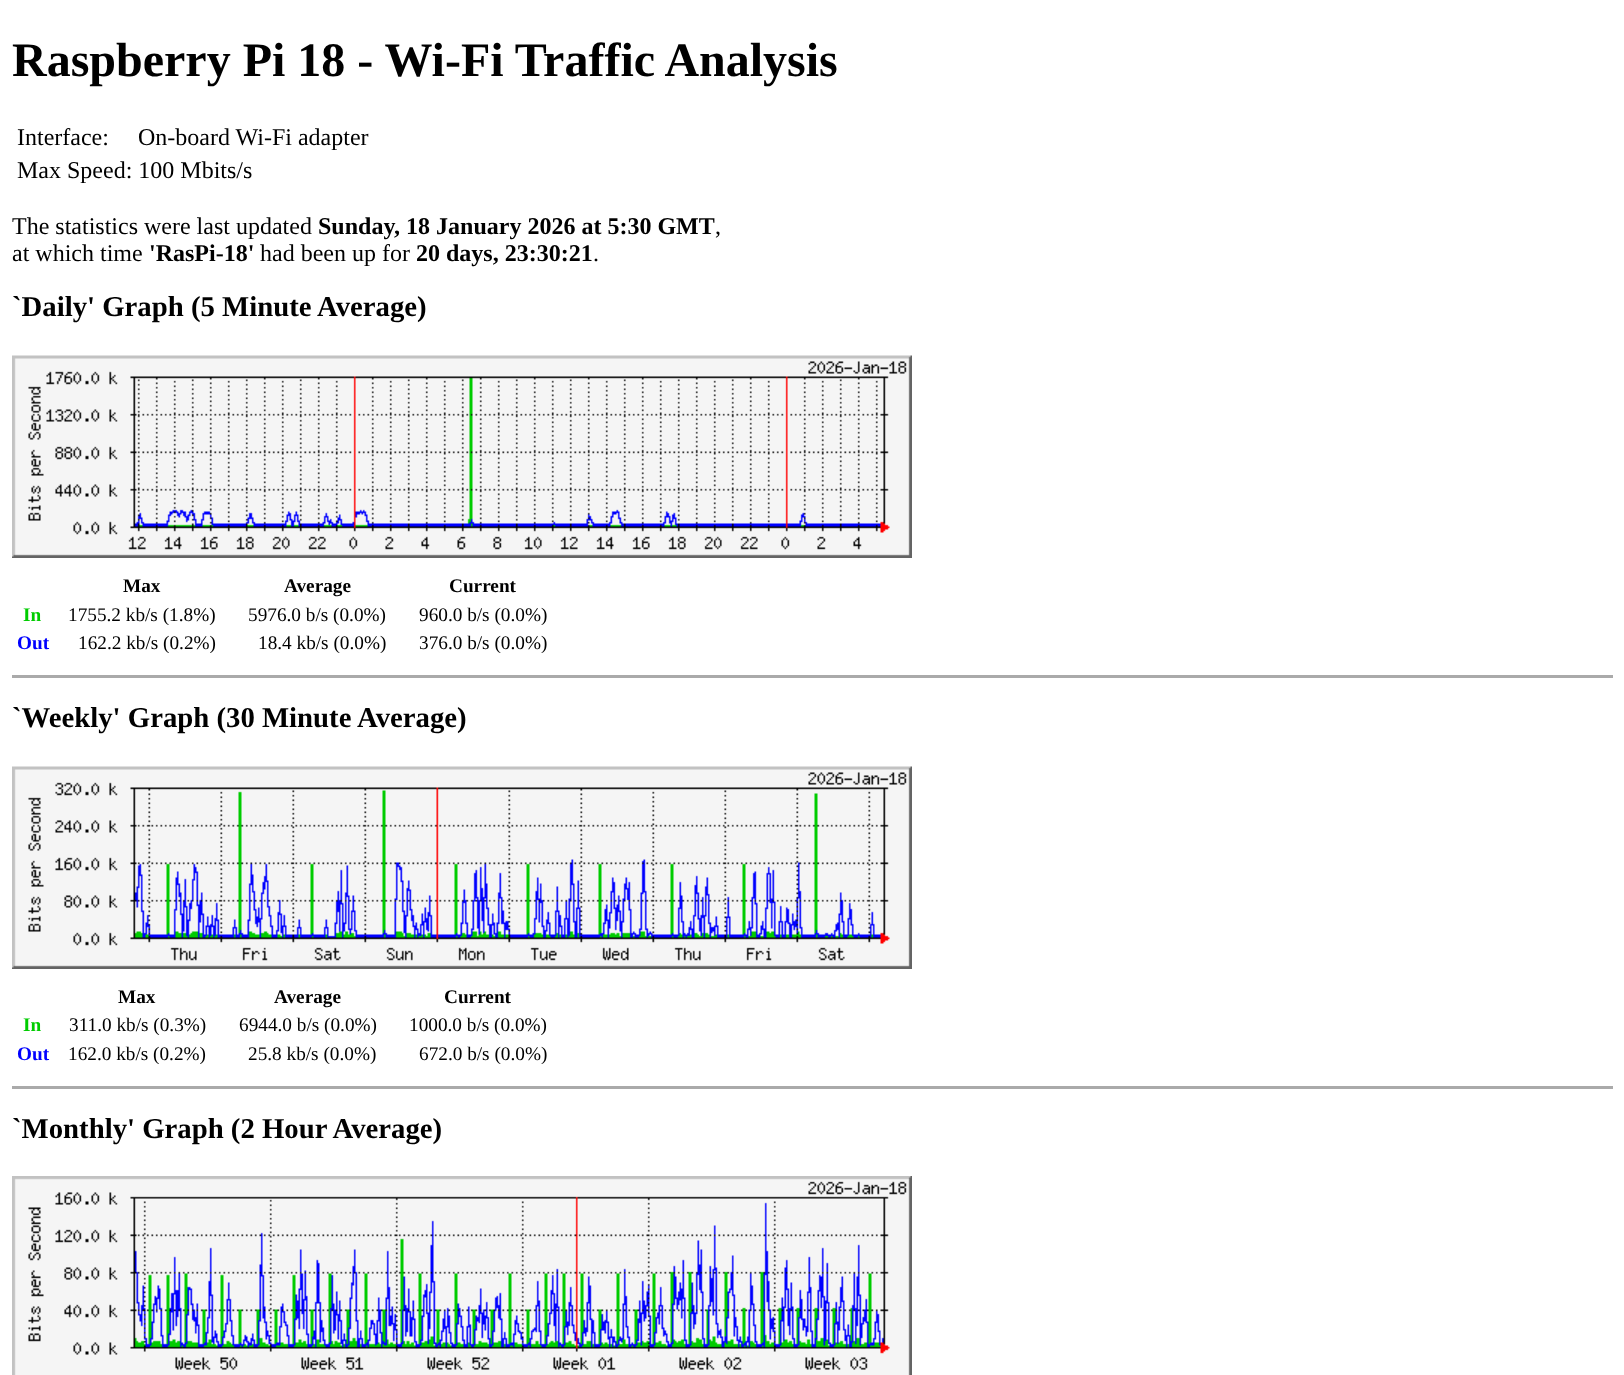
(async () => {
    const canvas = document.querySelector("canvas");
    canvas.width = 1624;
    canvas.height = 1375;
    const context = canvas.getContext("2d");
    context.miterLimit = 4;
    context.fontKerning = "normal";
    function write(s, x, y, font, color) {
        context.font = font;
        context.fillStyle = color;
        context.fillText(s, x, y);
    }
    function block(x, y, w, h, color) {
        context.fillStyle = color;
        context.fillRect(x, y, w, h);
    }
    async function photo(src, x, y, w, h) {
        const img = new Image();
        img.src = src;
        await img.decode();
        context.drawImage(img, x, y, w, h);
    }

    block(0, 0, 1624, 1375, "rgb(255, 255, 255)");
    write("Raspberry Pi 18 - Wi-Fi Traffic Analysis", 12, 76, "bold 48px Liberation Serif", "rgb(0, 0, 0)");
    write("Interface:", 17, 145, "24px Liberation Serif", "rgb(0, 0, 0)");
    write("On-board Wi-Fi adapter", 138, 145, "24px Liberation Serif", "rgb(0, 0, 0)");
    write("Max Speed: 100 Mbits/s", 17, 178, "24px Liberation Serif", "rgb(0, 0, 0)");
    write("The statistics were last updated", 12, 234, "24px Liberation Serif", "rgb(0, 0, 0)");
    write("Sunday, 18 January 2026 at 5:30 GMT", 318, 234, "bold 24px Liberation Serif", "rgb(0, 0, 0)");
    write(",", 715, 234, "24px Liberation Serif", "rgb(0, 0, 0)");
    write("at which time", 12, 261, "24px Liberation Serif", "rgb(0, 0, 0)");
    write("'RasPi-18'", 149, 261, "bold 24px Liberation Serif", "rgb(0, 0, 0)");
    write("had been up for", 260, 261, "24px Liberation Serif", "rgb(0, 0, 0)");
    write("20 days, 23:30:21", 416, 261, "bold 24px Liberation Serif", "rgb(0, 0, 0)");
    write(".", 593, 261, "24px Liberation Serif", "rgb(0, 0, 0)");
    block(12, 675, 1601, 3, "rgb(170, 170, 170)");
    write("`Daily' Graph (5 Minute Average)", 12, 316, "bold 28.75px Liberation Serif", "rgb(0, 0, 0)");
    await photo("media/1.png", 12, 355, 900, 203);
    write("Max", 123, 592, "bold 19.25px Liberation Serif", "rgb(0, 0, 0)");
    write("Average", 284, 592, "bold 19.25px Liberation Serif", "rgb(0, 0, 0)");
    write("Current", 449, 592, "bold 19.25px Liberation Serif", "rgb(0, 0, 0)");
    write("In", 23, 621, "bold 19.25px Liberation Serif", "rgb(0, 204, 0)");
    write("1755.2 kb/s (1.8%)", 68, 621, "19.25px Liberation Serif", "rgb(0, 0, 0)");
    write("5976.0 b/s (0.0%)", 248, 621, "19.25px Liberation Serif", "rgb(0, 0, 0)");
    write("960.0 b/s (0.0%)", 419, 621, "19.25px Liberation Serif", "rgb(0, 0, 0)");
    write("Out", 17, 649, "bold 19.25px Liberation Serif", "rgb(0, 0, 255)");
    write("162.2 kb/s (0.2%)", 78, 649, "19.25px Liberation Serif", "rgb(0, 0, 0)");
    write("18.4 kb/s (0.0%)", 258, 649, "19.25px Liberation Serif", "rgb(0, 0, 0)");
    write("376.0 b/s (0.0%)", 419, 649, "19.25px Liberation Serif", "rgb(0, 0, 0)");
    block(12, 1086, 1601, 3, "rgb(170, 170, 170)");
    write("`Weekly' Graph (30 Minute Average)", 12, 727, "bold 28.75px Liberation Serif", "rgb(0, 0, 0)");
    await photo("media/2.png", 12, 766, 900, 203);
    write("Max", 118, 1003, "bold 19.25px Liberation Serif", "rgb(0, 0, 0)");
    write("Average", 274, 1003, "bold 19.25px Liberation Serif", "rgb(0, 0, 0)");
    write("Current", 444, 1003, "bold 19.25px Liberation Serif", "rgb(0, 0, 0)");
    write("In", 23, 1031, "bold 19.25px Liberation Serif", "rgb(0, 204, 0)");
    write("311.0 kb/s (0.3%)", 69, 1031, "19.25px Liberation Serif", "rgb(0, 0, 0)");
    write("6944.0 b/s (0.0%)", 239, 1031, "19.25px Liberation Serif", "rgb(0, 0, 0)");
    write("1000.0 b/s (0.0%)", 409, 1031, "19.25px Liberation Serif", "rgb(0, 0, 0)");
    write("Out", 17, 1060, "bold 19.25px Liberation Serif", "rgb(0, 0, 255)");
    write("162.0 kb/s (0.2%)", 68, 1060, "19.25px Liberation Serif", "rgb(0, 0, 0)");
    write("25.8 kb/s (0.0%)", 248, 1060, "19.25px Liberation Serif", "rgb(0, 0, 0)");
    write("672.0 b/s (0.0%)", 419, 1060, "19.25px Liberation Serif", "rgb(0, 0, 0)");
    write("`Monthly' Graph (2 Hour Average)", 12, 1138, "bold 28.75px Liberation Serif", "rgb(0, 0, 0)");
    await photo("media/3.png", 12, 1176, 900, 199);
})();
